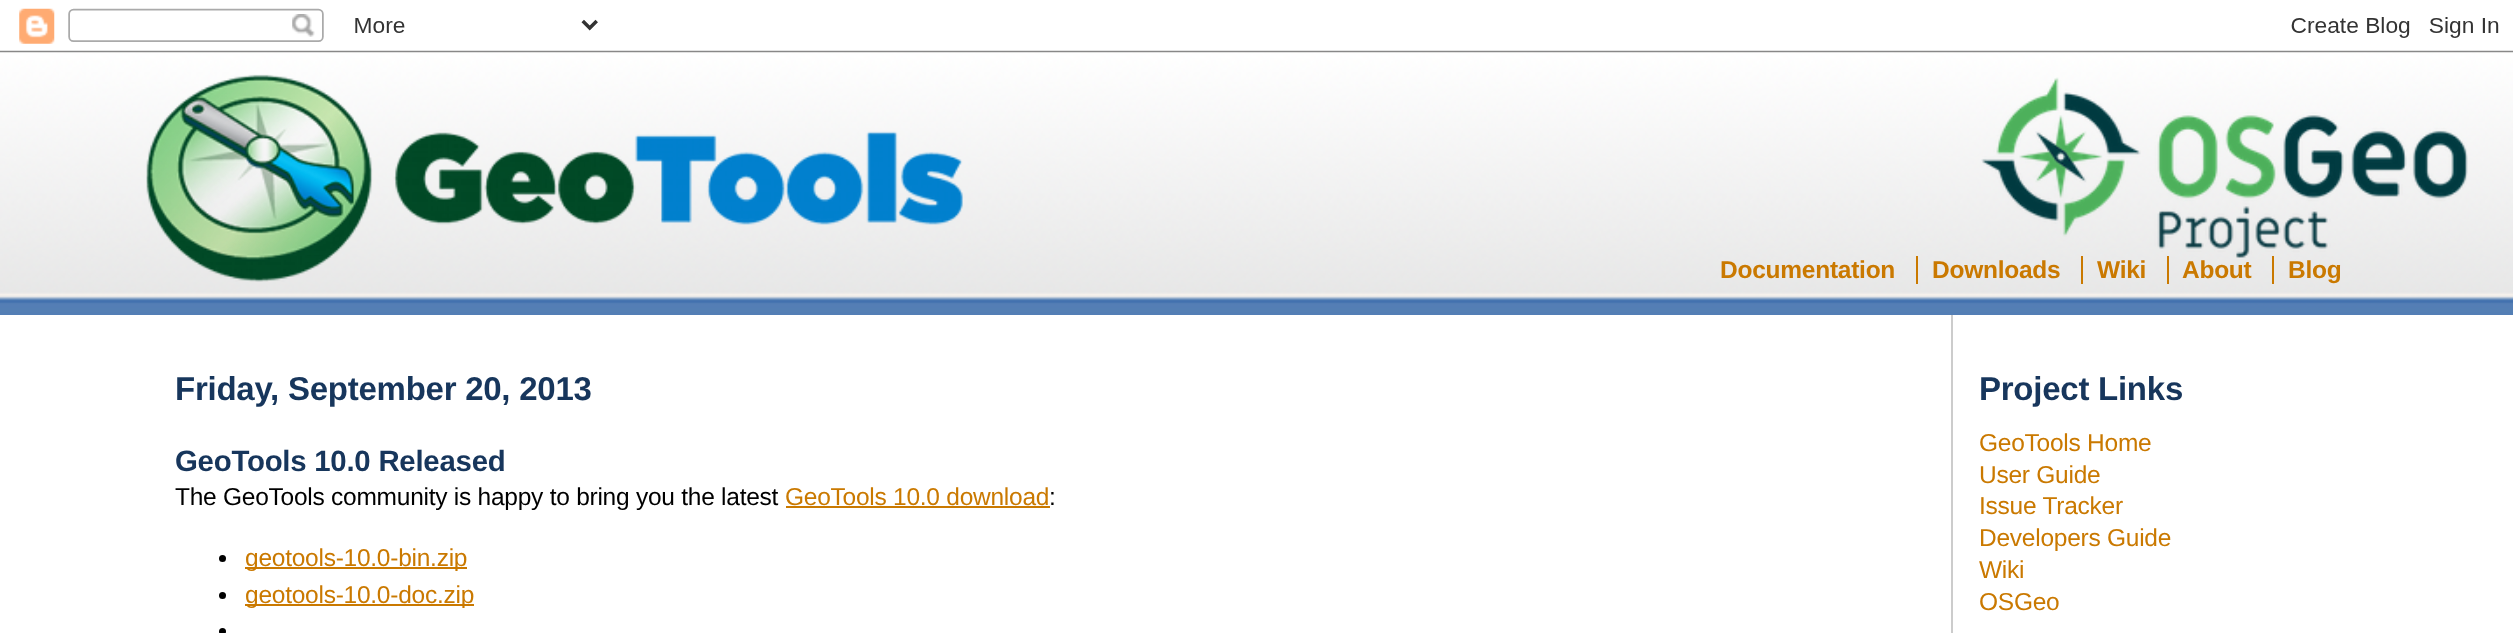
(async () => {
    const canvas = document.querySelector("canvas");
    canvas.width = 2513;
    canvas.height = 633;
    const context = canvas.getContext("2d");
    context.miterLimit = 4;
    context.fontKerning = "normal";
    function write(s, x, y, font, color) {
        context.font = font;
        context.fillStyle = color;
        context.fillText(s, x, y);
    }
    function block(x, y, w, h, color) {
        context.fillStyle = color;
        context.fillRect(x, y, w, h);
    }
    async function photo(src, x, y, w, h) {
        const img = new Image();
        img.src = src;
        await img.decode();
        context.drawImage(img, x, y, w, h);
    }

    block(0, 0, 2513, 633, "rgb(255, 255, 255)");
    await photo("media/1.png", 0, 8, 2513, 45);
    await photo("media/2.png", 0, 52, 2513, 263);
    await photo("media/3.png", 146, 74, 817, 208);
    await photo("media/4.png", 1981, 77, 487, 181);
    context.letterSpacing = "-0.25px";
    write("Documentation", 1720, 278, "bold 24.5px Liberation Sans", "rgb(202, 121, 0)");
    write("Downloads", 1932, 278, "bold 24.5px Liberation Sans", "rgb(202, 121, 0)");
    block(1916, 256, 2, 28, "rgb(202, 121, 0)");
    write("Wiki", 2097, 278, "bold 24.5px Liberation Sans", "rgb(202, 121, 0)");
    block(2081, 256, 2, 28, "rgb(202, 121, 0)");
    write("About", 2182, 278, "bold 24.5px Liberation Sans", "rgb(202, 121, 0)");
    block(2167, 256, 2, 28, "rgb(202, 121, 0)");
    write("Blog", 2288, 278, "bold 24.5px Liberation Sans", "rgb(202, 121, 0)");
    block(2272, 256, 2, 28, "rgb(202, 121, 0)");
    block(1951, 315, 2, 318, "rgb(204, 204, 204)");
    write("Friday, September 20, 2013", 175, 400, "bold 33px Liberation Sans", "rgb(23, 54, 92)");
    write("GeoTools 10.0 Released", 175, 471, "bold 29.4px Liberation Sans", "rgb(23, 54, 92)");
    write("The GeoTools community is happy to bring you the latest", 175, 505, "24.5px Liberation Sans", "rgb(0, 0, 0)");
    write("GeoTools 10.0 download", 785, 505, "24.5px Liberation Sans", "rgb(202, 121, 0)");
    block(786, 506, 264, 2, "rgb(202, 121, 0)");
    write(":", 1049, 505, "24.5px Liberation Sans", "rgb(0, 0, 0)");
    context.beginPath();
    context.arc(222.5, 558.5, 3.5, 0, Math.PI * 2);
    context.fill();
    block(245, 567, 222, 2, "rgb(202, 121, 0)");
    write("geotools-10.0-bin.zip", 245, 566, "24.5px Liberation Sans", "rgb(202, 121, 0)");
    context.fillStyle = "rgb(0, 0, 0)";
    context.beginPath();
    context.arc(222.5, 595.5, 3.5, 0, Math.PI * 2);
    context.fill();
    block(245, 604, 229, 2, "rgb(202, 121, 0)");
    write("geotools-10.0-doc.zip", 245, 603, "24.5px Liberation Sans", "rgb(202, 121, 0)");
    context.fillStyle = "rgb(0, 0, 0)";
    context.beginPath();
    context.arc(222.5, 631.5, 3.5, 0, Math.PI * 2);
    context.fill();
    write("Project Links", 1979, 400, "bold 33px Liberation Sans", "rgb(23, 54, 92)");
    write("GeoTools Home", 1979, 451, "24.5px Liberation Sans", "rgb(202, 121, 0)");
    write("User Guide", 1979, 483, "24.5px Liberation Sans", "rgb(202, 121, 0)");
    write("Issue Tracker", 1979, 514, "24.5px Liberation Sans", "rgb(202, 121, 0)");
    write("Developers Guide", 1979, 546, "24.5px Liberation Sans", "rgb(202, 121, 0)");
    write("Wiki", 1979, 578, "24.5px Liberation Sans", "rgb(202, 121, 0)");
    write("OSGeo", 1979, 610, "24.5px Liberation Sans", "rgb(202, 121, 0)");
})();
